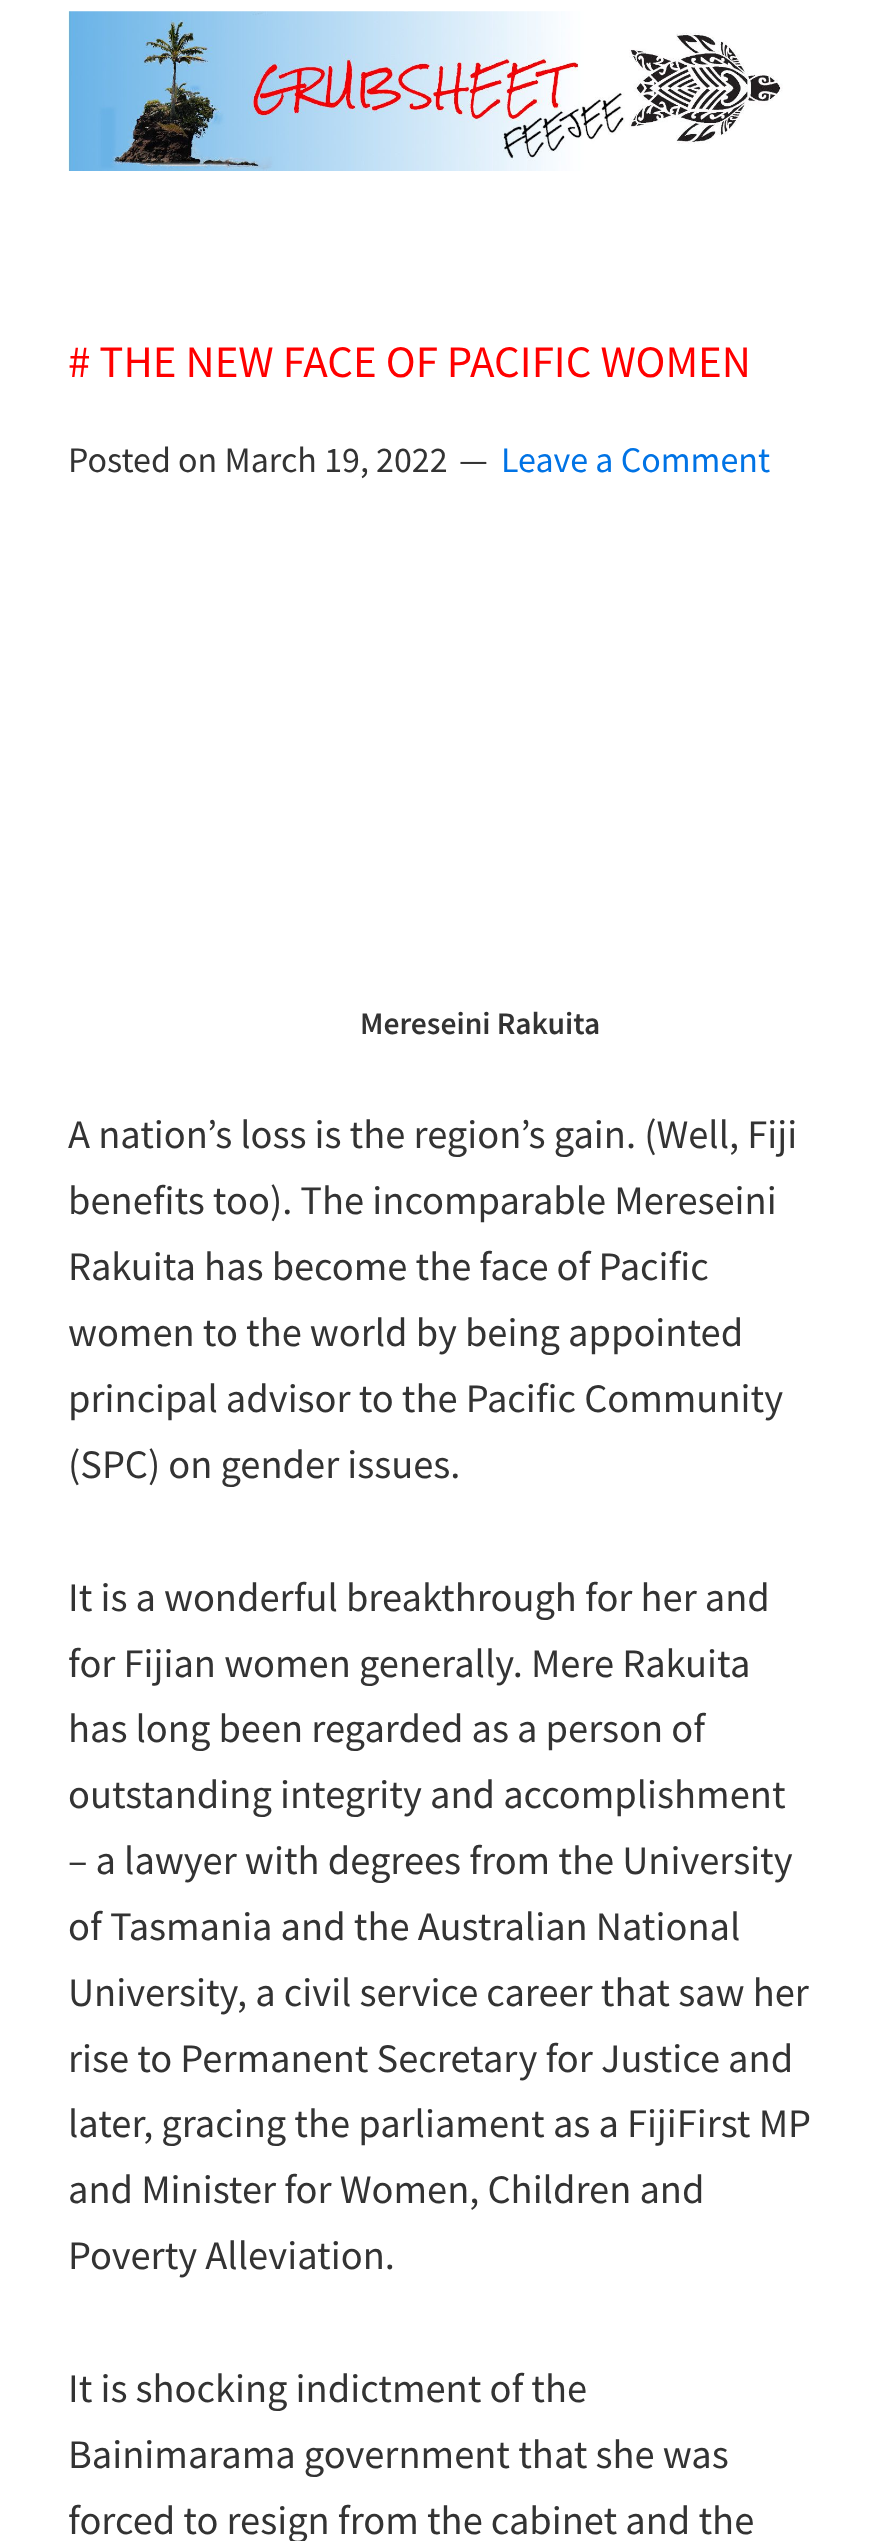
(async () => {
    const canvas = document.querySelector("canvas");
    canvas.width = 879;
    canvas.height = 2541;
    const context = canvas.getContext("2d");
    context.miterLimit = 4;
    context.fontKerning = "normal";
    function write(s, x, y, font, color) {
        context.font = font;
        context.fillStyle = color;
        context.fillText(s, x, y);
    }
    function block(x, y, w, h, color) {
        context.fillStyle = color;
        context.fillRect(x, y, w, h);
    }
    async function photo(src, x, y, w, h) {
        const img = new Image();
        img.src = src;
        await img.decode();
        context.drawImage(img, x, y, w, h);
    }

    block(0, 0, 879, 2541, "rgb(255, 255, 255)");
    await photo("media/1.png", 68, 11, 715, 160);
    write("# THE NEW FACE OF PACIFIC WOMEN", 68, 377, "45px Source Sans Pro", "rgb(255, 0, 0)");
    write("Posted on March 19, 2022", 68, 472, "36px Source Sans Pro", "rgb(51, 51, 51)");
    write("—", 459, 472, "36px Source Sans Pro", "rgb(51, 51, 51)");
    write("Leave a Comment", 501, 472, "36px Source Sans Pro", "rgb(0, 115, 229)");
    write("Mereseini Rakuita", 360, 1034, "600 31.5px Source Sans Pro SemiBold", "rgb(51, 51, 51)");
    write("A nation’s loss is the region’s gain. (Well, Fiji", 68, 1148, "40.5px Source Sans Pro", "rgb(51, 51, 51)");
    write("benefits too). The incomparable Mereseini", 68, 1214, "40.5px Source Sans Pro", "rgb(51, 51, 51)");
    write("Rakuita has become the face of Pacific", 68, 1280, "40.5px Source Sans Pro", "rgb(51, 51, 51)");
    write("women to the world by being appointed", 68, 1346, "40.5px Source Sans Pro", "rgb(51, 51, 51)");
    write("principal advisor to the Pacific Community", 68, 1412, "40.5px Source Sans Pro", "rgb(51, 51, 51)");
    write("(SPC) on gender issues.", 68, 1478, "40.5px Source Sans Pro", "rgb(51, 51, 51)");
    write("It is a wonderful breakthrough for her and", 68, 1611, "40.5px Source Sans Pro", "rgb(51, 51, 51)");
    write("for Fijian women generally. Mere Rakuita", 68, 1677, "40.5px Source Sans Pro", "rgb(51, 51, 51)");
    write("has long been regarded as a person of", 68, 1742, "40.5px Source Sans Pro", "rgb(51, 51, 51)");
    write("outstanding integrity and accomplishment", 68, 1808, "40.5px Source Sans Pro", "rgb(51, 51, 51)");
    write("– a lawyer with degrees from the University", 68, 1874, "40.5px Source Sans Pro", "rgb(51, 51, 51)");
    write("of Tasmania and the Australian National", 68, 1940, "40.5px Source Sans Pro", "rgb(51, 51, 51)");
    write("University, a civil service career that saw her", 68, 2006, "40.5px Source Sans Pro", "rgb(51, 51, 51)");
    write("rise to Permanent Secretary for Justice and", 68, 2072, "40.5px Source Sans Pro", "rgb(51, 51, 51)");
    write("later, gracing the parliament as a FijiFirst MP", 68, 2137, "40.5px Source Sans Pro", "rgb(51, 51, 51)");
    write("and Minister for Women, Children and", 68, 2203, "40.5px Source Sans Pro", "rgb(51, 51, 51)");
    write("Poverty Alleviation.", 68, 2269, "40.5px Source Sans Pro", "rgb(51, 51, 51)");
    write("It is shocking indictment of the", 68, 2402, "40.5px Source Sans Pro", "rgb(51, 51, 51)");
    write("Bainimarama government that she was", 68, 2468, "40.5px Source Sans Pro", "rgb(51, 51, 51)");
    write("forced to resign from the cabinet and the", 68, 2534, "40.5px Source Sans Pro", "rgb(51, 51, 51)");
})();
